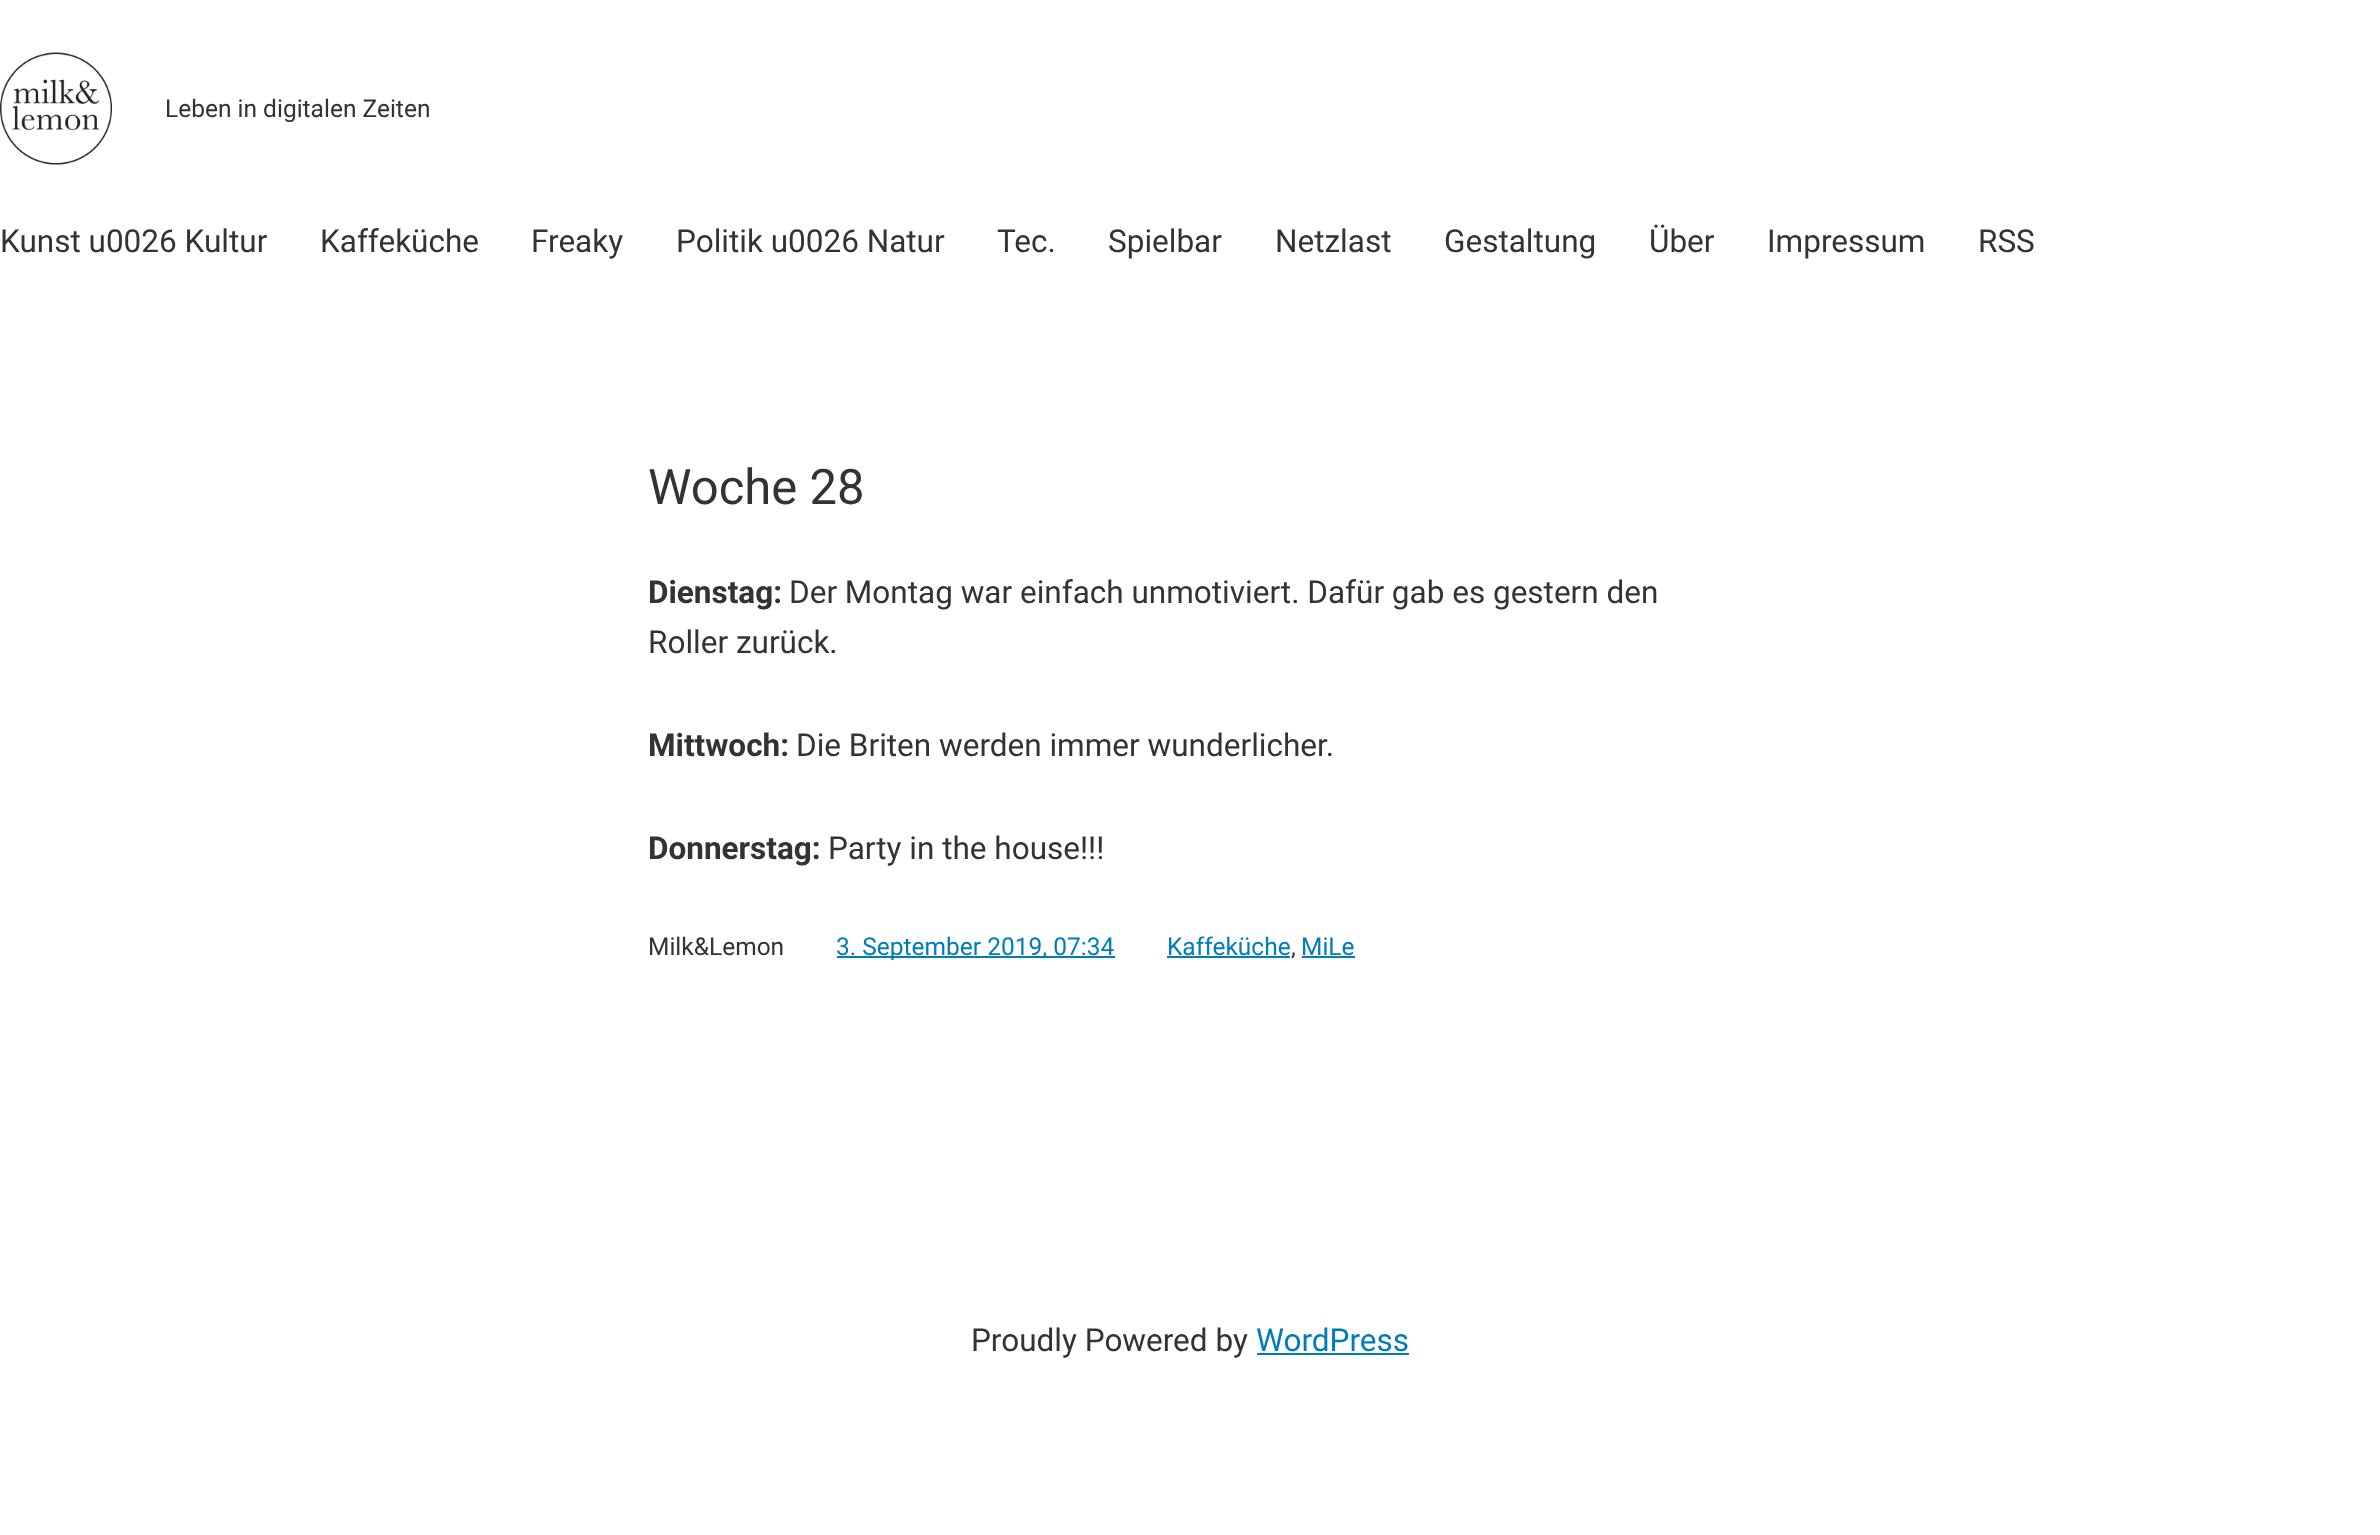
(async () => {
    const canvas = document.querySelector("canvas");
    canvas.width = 2380;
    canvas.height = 1535;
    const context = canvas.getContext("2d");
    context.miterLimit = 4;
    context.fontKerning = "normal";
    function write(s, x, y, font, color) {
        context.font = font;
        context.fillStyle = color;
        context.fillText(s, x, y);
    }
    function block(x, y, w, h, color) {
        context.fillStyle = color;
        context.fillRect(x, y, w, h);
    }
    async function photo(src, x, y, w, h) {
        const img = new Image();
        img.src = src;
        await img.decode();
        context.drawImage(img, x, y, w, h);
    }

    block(0, 0, 2380, 1535, "rgb(255, 255, 255)");
    await photo("media/1.png", 0, 52, 112, 113);
    write("Leben in digitalen Zeiten", 165, 117, "24.5px Roboto", "rgb(51, 51, 51)");
    write("Kunst u0026 Kultur", 0, 252, "31.5px Roboto", "rgb(51, 51, 51)");
    write("Kaffeküche", 320, 252, "31.5px Roboto", "rgb(51, 51, 51)");
    write("Freaky", 531, 252, "31.5px Roboto", "rgb(51, 51, 51)");
    write("Politik u0026 Natur", 676, 252, "31.5px Roboto", "rgb(51, 51, 51)");
    write("Tec.", 997, 252, "31.5px Roboto", "rgb(51, 51, 51)");
    write("Spielbar", 1108, 252, "31.5px Roboto", "rgb(51, 51, 51)");
    write("Netzlast", 1275, 252, "31.5px Roboto", "rgb(51, 51, 51)");
    write("Gestaltung", 1444, 252, "31.5px Roboto", "rgb(51, 51, 51)");
    write("Über", 1649, 252, "31.5px Roboto", "rgb(51, 51, 51)");
    write("Impressum", 1767, 252, "31.5px Roboto", "rgb(51, 51, 51)");
    write("RSS", 1978, 252, "31.5px Roboto", "rgb(51, 51, 51)");
    write("Woche 28", 648, 504, "49px Roboto", "rgb(51, 51, 51)");
    write("Dienstag:", 648, 603, "bold 31.5px Roboto", "rgb(51, 51, 51)");
    write("Der Montag war einfach unmotiviert. Dafür gab es gestern den", 789, 603, "31.5px Roboto", "rgb(51, 51, 51)");
    write("Roller zurück.", 648, 653, "31.5px Roboto", "rgb(51, 51, 51)");
    write("Mittwoch:", 648, 756, "bold 31.5px Roboto", "rgb(51, 51, 51)");
    write("Die Briten werden immer wunderlicher.", 796, 756, "31.5px Roboto", "rgb(51, 51, 51)");
    write("Donnerstag:", 648, 859, "bold 31.5px Roboto", "rgb(51, 51, 51)");
    write("Party in the house!!!", 828, 859, "31.5px Roboto", "rgb(51, 51, 51)");
    write("Milk&Lemon", 648, 955, "24.5px Roboto", "rgb(51, 51, 51)");
    block(837, 956, 278, 2, "rgb(0, 124, 186)");
    write("3. September 2019, 07:34", 836, 955, "24.5px Roboto", "rgb(0, 124, 186)");
    write("Kaffeküche", 1167, 955, "24.5px Roboto", "rgb(0, 124, 186)");
    block(1167, 956, 123, 2, "rgb(0, 124, 186)");
    write(",", 1291, 955, "24.5px Roboto", "rgb(51, 51, 51)");
    write("MiLe", 1301, 955, "24.5px Roboto", "rgb(0, 124, 186)");
    block(1302, 956, 53, 2, "rgb(0, 124, 186)");
    write("Proudly Powered by", 971, 1351, "31.5px Roboto", "rgb(51, 51, 51)");
    write("WordPress", 1256, 1351, "31.5px Roboto", "rgb(0, 124, 186)");
    block(1257, 1353, 152, 2, "rgb(0, 124, 186)");
})();
